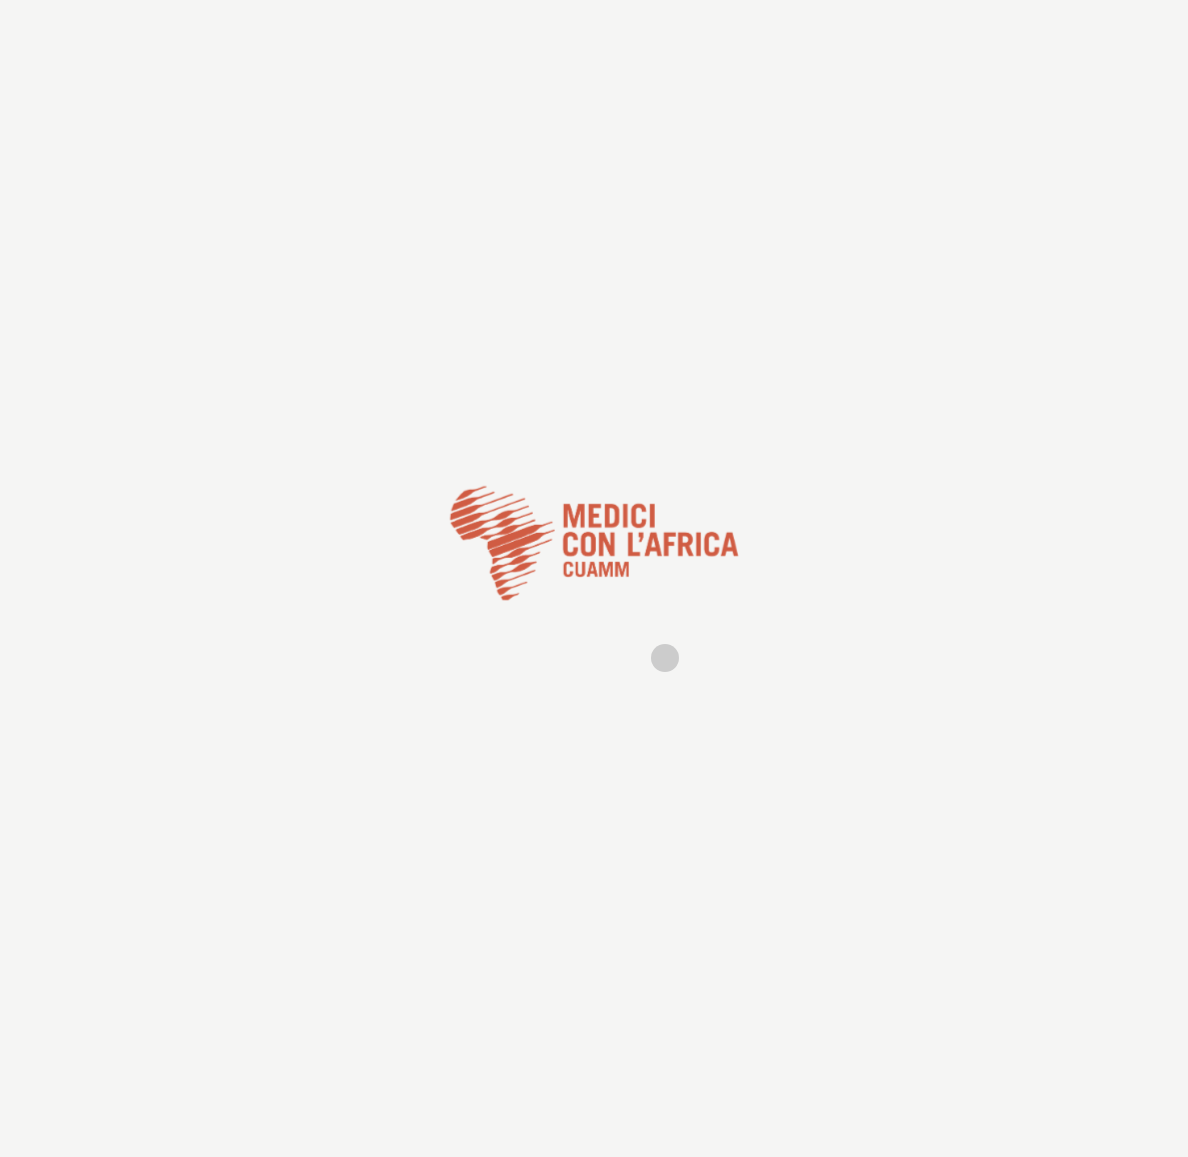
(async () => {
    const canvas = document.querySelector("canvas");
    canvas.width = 1188;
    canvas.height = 1157;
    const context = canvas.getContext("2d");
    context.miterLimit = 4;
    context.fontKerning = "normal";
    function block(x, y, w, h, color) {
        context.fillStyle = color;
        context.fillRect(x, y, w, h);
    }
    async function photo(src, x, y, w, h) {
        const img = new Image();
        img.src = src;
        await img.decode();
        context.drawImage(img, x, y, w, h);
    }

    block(0, 0, 1188, 1157, "rgb(245, 245, 244)");
    await photo("media/1.png", 449, 485, 290, 116);
    context.fillStyle = "rgb(204, 204, 204)";
    context.beginPath();
    context.arc(665, 658, 14, 0, Math.PI * 2);
    context.fill();
})();
